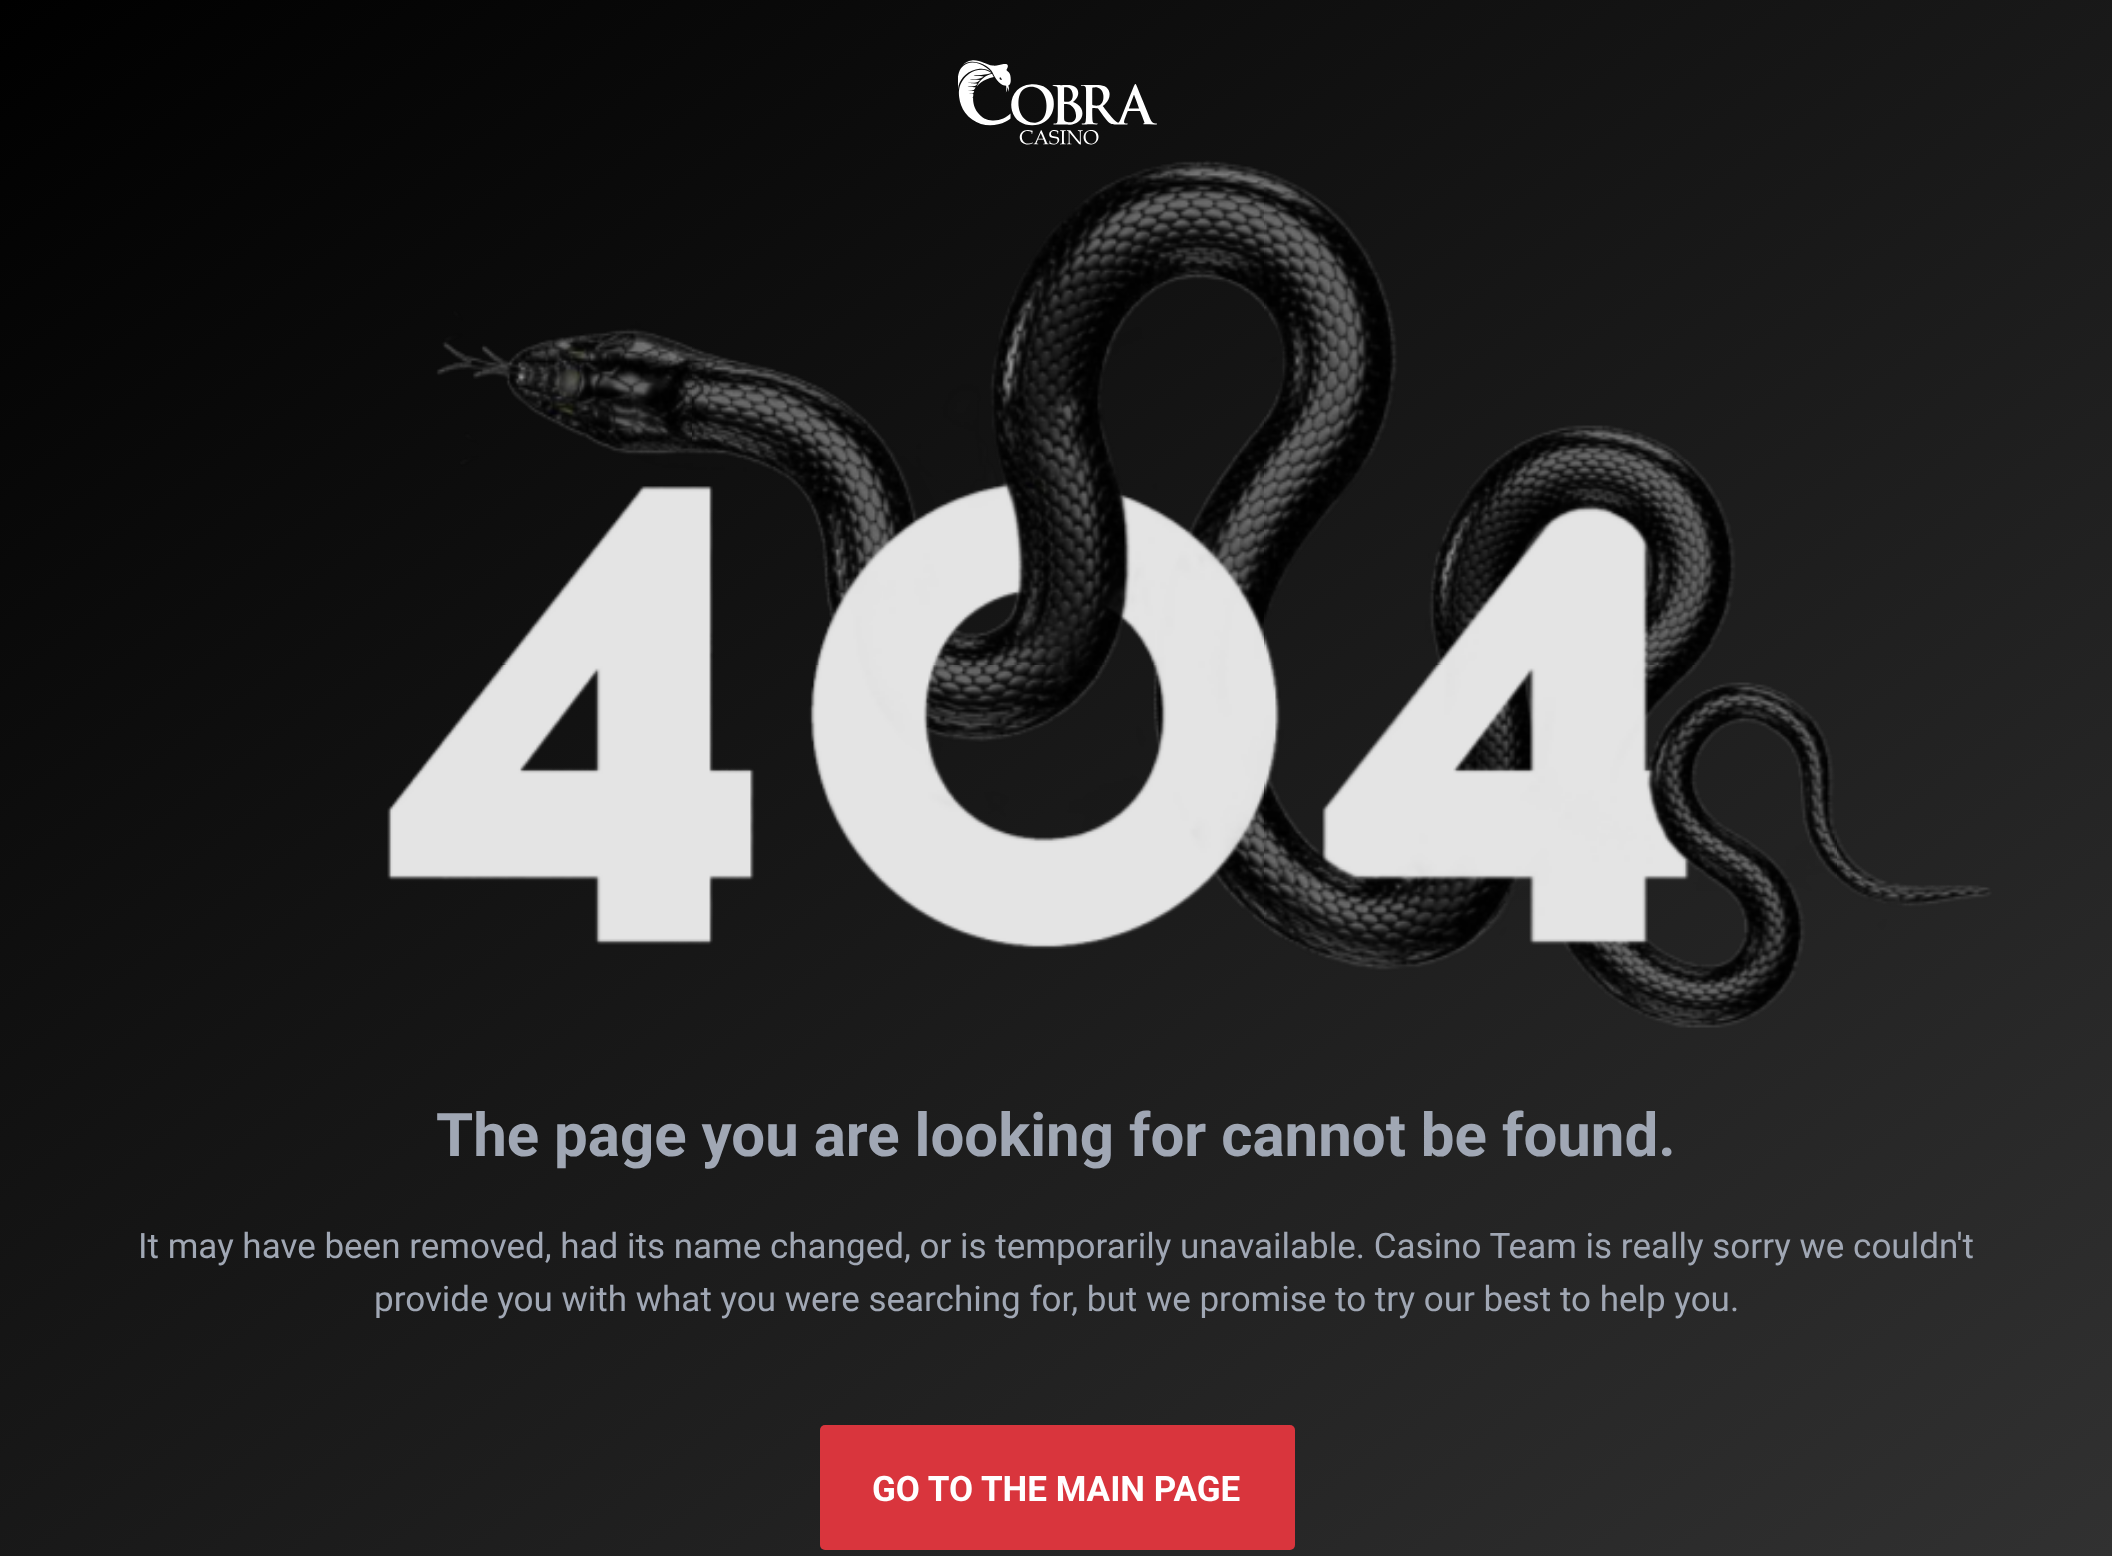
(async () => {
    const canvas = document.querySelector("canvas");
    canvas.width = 2112;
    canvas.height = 1556;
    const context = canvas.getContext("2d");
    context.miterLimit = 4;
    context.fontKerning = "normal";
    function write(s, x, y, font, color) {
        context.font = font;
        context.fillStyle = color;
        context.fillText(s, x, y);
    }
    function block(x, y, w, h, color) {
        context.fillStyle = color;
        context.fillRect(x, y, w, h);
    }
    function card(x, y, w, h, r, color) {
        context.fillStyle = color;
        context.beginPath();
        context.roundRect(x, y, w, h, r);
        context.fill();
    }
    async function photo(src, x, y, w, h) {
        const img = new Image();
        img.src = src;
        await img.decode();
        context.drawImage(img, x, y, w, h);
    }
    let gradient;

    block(0, 0, 2112, 1556, "rgb(255, 255, 255)");
    gradient = context.createLinearGradient(312, -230, 1800, 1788);
    gradient.addColorStop(0, "rgb(0, 0, 0)");
    gradient.addColorStop(1, "rgb(49, 49, 49)");
    context.fillStyle = gradient;
    context.fillRect(0, 0, 2112, 1556);
    await photo("media/1.png", 958, 60, 199, 85);
    await photo("media/2.png", 387, 160, 1605, 868);
    write("The page you are looking for cannot be found.", 436, 1156, "bold 60px Roboto", "rgb(160, 167, 180)");
    write("It may have been removed, had its name changed, or is temporarily unavailable. Casino Team is really sorry we couldn't", 138, 1258, "35px Roboto", "rgb(160, 167, 180)");
    write("provide you with what you were searching for, but we promise to try our best to help you.", 374, 1311, "35px Roboto", "rgb(160, 167, 180)");
    card(820, 1425, 475, 125, 5, "rgb(217, 53, 61)");
    write("GO TO THE MAIN PAGE", 872, 1501, "bold 35px Roboto", "rgb(255, 255, 255)");
})();
